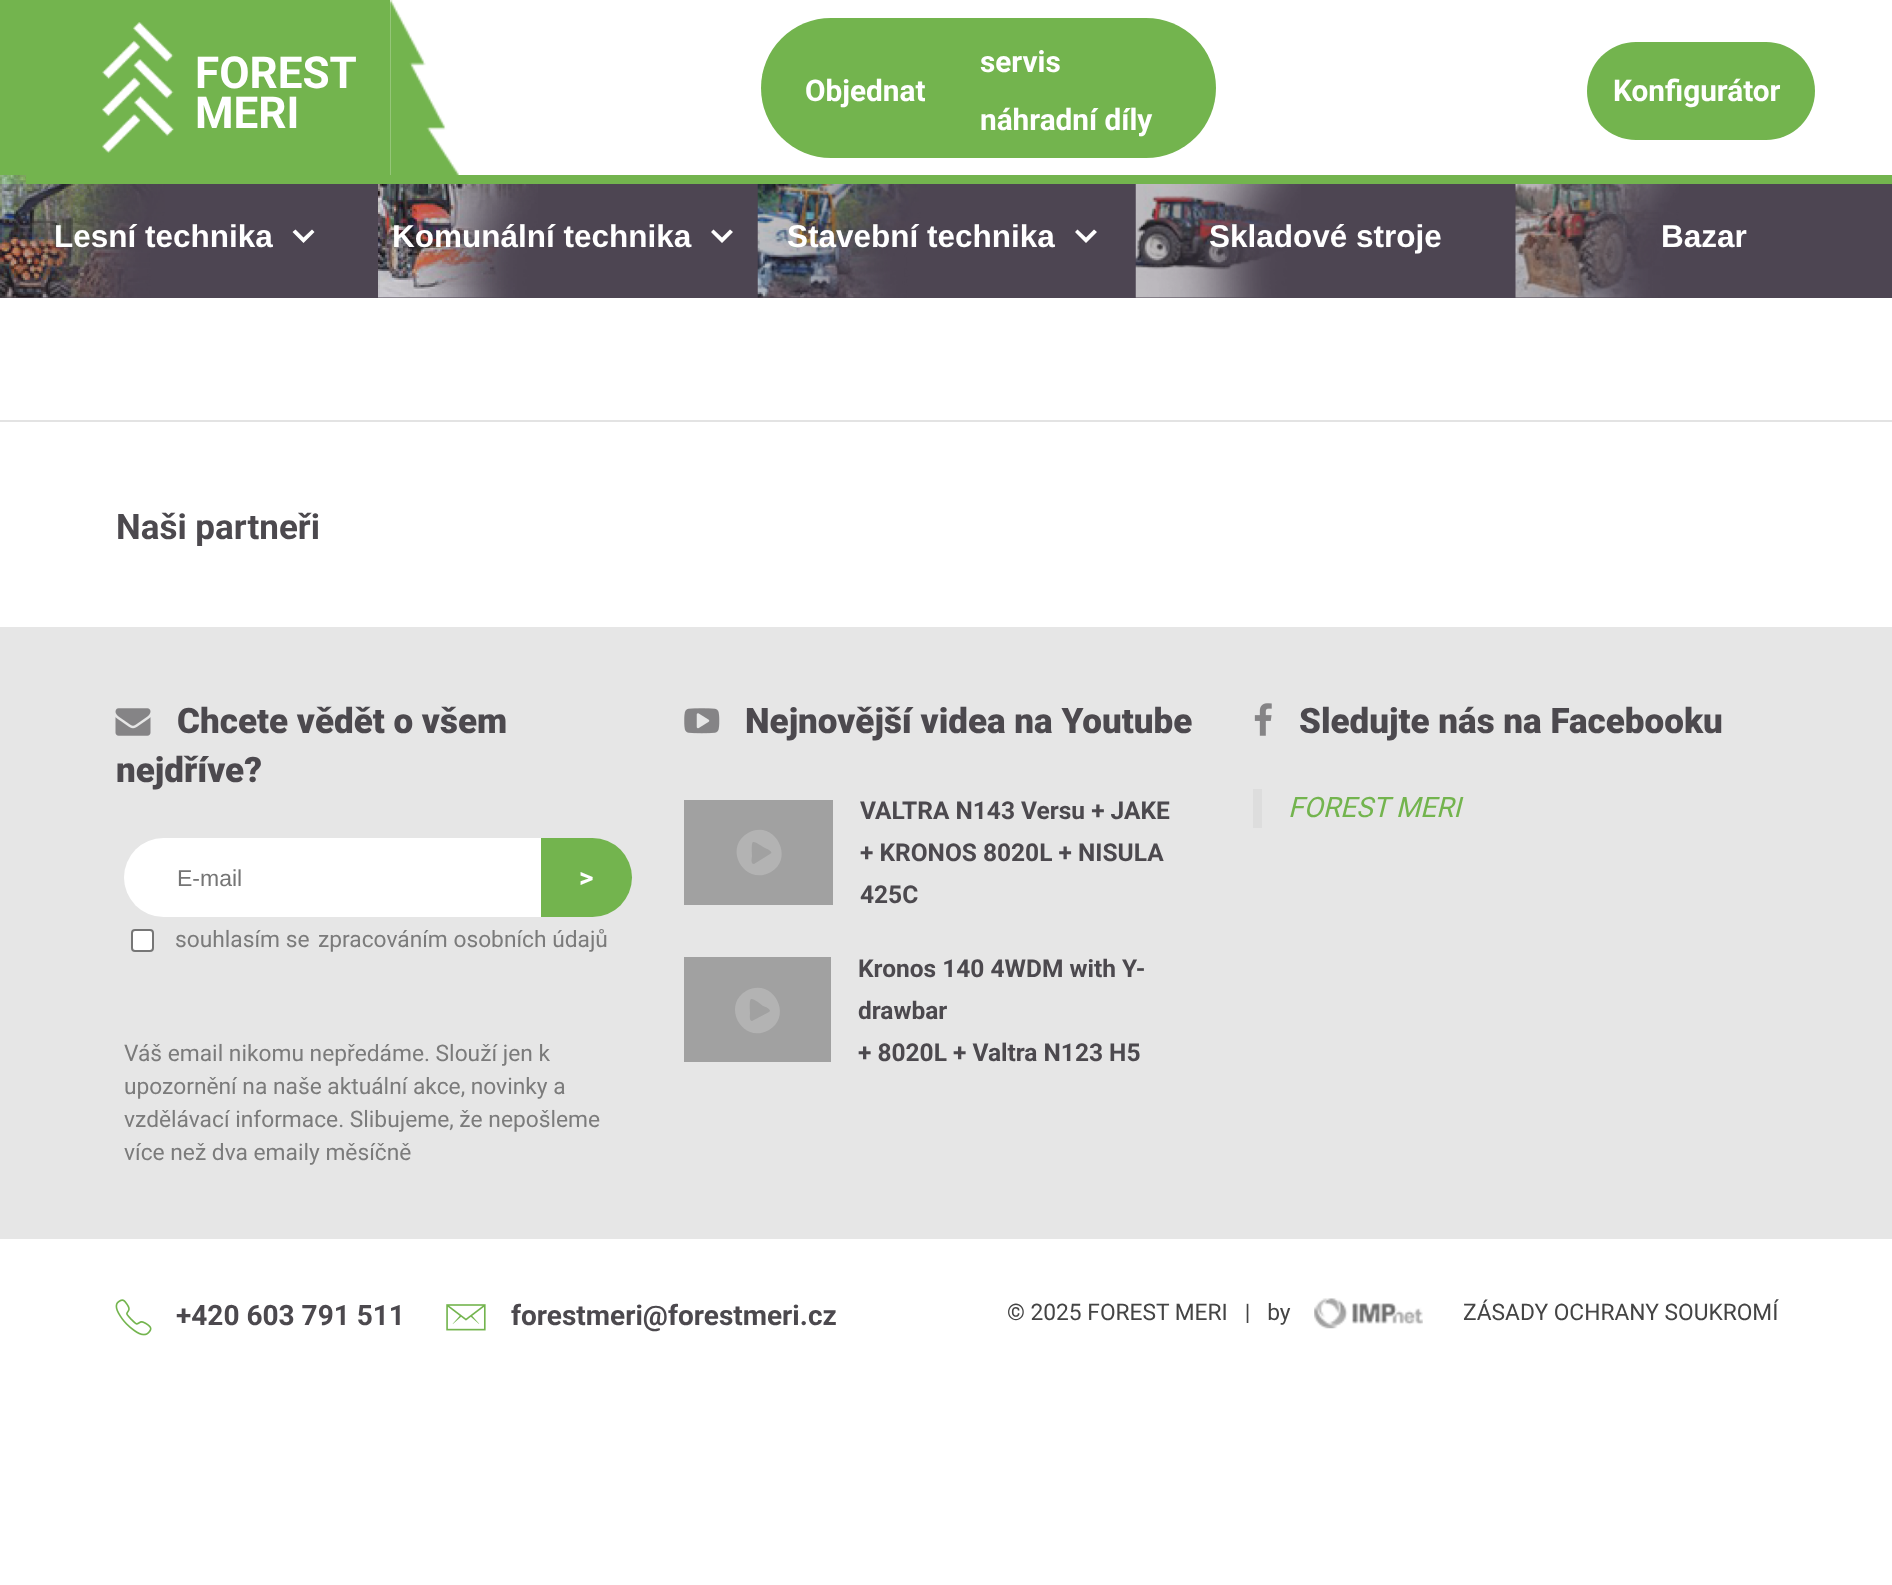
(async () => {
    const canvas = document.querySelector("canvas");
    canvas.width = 1892;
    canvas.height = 1585;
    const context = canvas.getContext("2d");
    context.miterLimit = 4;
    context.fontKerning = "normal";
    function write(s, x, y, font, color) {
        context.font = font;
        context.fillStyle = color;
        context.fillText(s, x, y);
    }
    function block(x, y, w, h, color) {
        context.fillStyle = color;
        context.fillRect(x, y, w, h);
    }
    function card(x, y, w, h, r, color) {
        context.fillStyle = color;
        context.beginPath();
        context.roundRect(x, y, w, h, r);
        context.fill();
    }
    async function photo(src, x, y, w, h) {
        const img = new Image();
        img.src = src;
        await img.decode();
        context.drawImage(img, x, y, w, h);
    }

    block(0, 0, 1892, 1585, "rgb(255, 255, 255)");
    context.fillStyle = "rgb(115, 180, 78)";
    context.beginPath();
    context.moveTo(0, 175);
    context.lineTo(0, 184);
    context.lineTo(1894, 184);
    context.lineTo(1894, 9);
    context.lineTo(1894, 175);
    context.closePath();
    context.fill();
    block(0, 0, 390, 175, "rgb(115, 180, 78)");
    block(0, 184, 1892, 114, "rgb(77, 69, 82)");
    await photo("media/3.png", 0, 175, 165, 123);
    context.fillStyle = "rgb(115, 180, 78)";
    context.beginPath();
    context.moveTo(26, 9);
    context.lineTo(26, 184);
    context.lineTo(1867, 184);
    context.lineTo(1867, 175);
    context.lineTo(26, 175);
    context.closePath();
    context.fill();
    await photo("media/1.png", 102, 22, 72, 131);
    write("FOREST", 195, 88, "bold 44px Roboto", "rgb(255, 255, 255)");
    write("MERI", 195, 128, "bold 44px Roboto", "rgb(255, 255, 255)");
    await photo("media/2.png", 390, 0, 69, 175);
    card(761, 18, 455, 140, 70, "rgb(115, 180, 78)");
    write("Objednat", 805, 101, "bold 29.75px Roboto", "rgb(255, 255, 255)");
    write("servis", 980, 72, "bold 29.75px Roboto", "rgb(255, 255, 255)");
    write("náhradní díly", 980, 130, "bold 29.75px Roboto", "rgb(255, 255, 255)");
    card(1587, 42, 228, 98, 49, "rgb(115, 180, 78)");
    write("Konfigurátor", 1613, 101, "bold 29.75px Roboto", "rgb(255, 255, 255)");
    write("Lesní technika", 54, 247, "bold 31.5px Liberation Sans", "rgb(255, 255, 255)");
    context.beginPath();
    context.moveTo(295.5, 229.5);
    context.lineTo(303.5, 237.5);
    context.lineTo(312, 229.5);
    context.lineTo(314.5, 232);
    context.lineTo(303.5, 243);
    context.lineTo(292.5, 232);
    context.closePath();
    context.fill();
    await photo("media/4.png", 378, 184, 160, 114);
    write("Komunální technika", 392, 247, "bold 31.5px Liberation Sans", "rgb(255, 255, 255)");
    context.beginPath();
    context.moveTo(713.5, 229.5);
    context.lineTo(722, 237.5);
    context.lineTo(730, 229.5);
    context.lineTo(733, 232);
    context.lineTo(722, 243);
    context.lineTo(711, 232);
    context.closePath();
    context.fill();
    await photo("media/5.png", 757, 184, 164, 114);
    write("Stavební technika", 787, 247, "bold 31.5px Liberation Sans", "rgb(255, 255, 255)");
    context.beginPath();
    context.moveTo(1077.5, 229.5);
    context.lineTo(1086, 237.5);
    context.lineTo(1094, 229.5);
    context.lineTo(1097, 232);
    context.lineTo(1086, 243);
    context.lineTo(1075, 232);
    context.closePath();
    context.fill();
    await photo("media/6.png", 1135, 184, 166, 114);
    write("Skladové stroje", 1209, 247, "bold 31.5px Liberation Sans", "rgb(255, 255, 255)");
    await photo("media/7.png", 1515, 184, 164, 114);
    write("Bazar", 1661, 247, "bold 31.5px Liberation Sans", "rgb(255, 255, 255)");
    block(0, 420, 1892, 2, "rgb(227, 227, 227)");
    write("Naši partneři", 116, 539, "bold 35px Roboto", "rgb(76, 73, 78)");
    block(0, 627, 1892, 612, "rgb(230, 230, 230)");
    block(684, 957, 147, 105, "rgb(161, 161, 161)");
    block(684, 800, 149, 105, "rgb(161, 161, 161)");
    await photo("media/8.png", 115, 708, 36, 28);
    write("Chcete vědět o všem", 177, 733, "900 35px Roboto", "rgb(76, 73, 78)");
    write("nejdříve?", 116, 782, "900 35px Roboto", "rgb(76, 73, 78)");
    card(124, 838, 482, 79, 39.5, "rgb(255, 255, 255)");
    write("E-mail", 177, 886, "23px Liberation Sans", "rgb(117, 117, 117)");
    context.fillStyle = "rgb(115, 180, 78)";
    context.beginPath();
    context.roundRect(541, 838, 91, 79, [0, 39.5, 39.5, 0]);
    context.fill();
    write(">", 579, 887, "bold 28px Roboto", "rgb(255, 255, 255)");
    context.beginPath();
    context.roundRect(132, 930, 21, 21, 3);
    context.fill();
    context.strokeStyle = "rgb(118, 118, 118)";
    context.lineWidth = 2;
    context.stroke();
    write("souhlasím se", 175, 947, "22.75px Roboto", "rgb(123, 123, 123)");
    write("zpracováním osobních údajů", 318, 947, "22.75px Roboto", "rgb(123, 123, 123)");
    write("Váš email nikomu nepředáme. Slouží jen k", 124, 1061, "22.75px Roboto", "rgb(123, 123, 123)");
    write("upozornění na naše aktuální akce, novinky a", 124, 1094, "22.75px Roboto", "rgb(123, 123, 123)");
    write("vzdělávací informace. Slibujeme, že nepošleme", 124, 1127, "22.75px Roboto", "rgb(123, 123, 123)");
    write("více než dva emaily měsíčně", 124, 1160, "22.75px Roboto", "rgb(123, 123, 123)");
    await photo("media/9.png", 684, 708, 36, 26);
    write("Nejnovější videa na Youtube", 745, 733, "900 35px Roboto", "rgb(76, 73, 78)");
    context.fillStyle = "rgb(179, 179, 179)";
    context.beginPath();
    context.moveTo(748, 833);
    context.bezierCurveTo(773, 818, 796, 857, 771, 872);
    context.bezierCurveTo(745, 887, 722, 848, 748, 833);
    context.closePath();
    context.moveTo(770, 854);
    context.bezierCurveTo(775, 852, 765, 848, 765, 848);
    context.bezierCurveTo(763, 847, 755, 841, 753, 842);
    context.bezierCurveTo(751, 843, 752, 854, 752, 856);
    context.bezierCurveTo(752, 857, 750, 864, 754, 864);
    context.closePath();
    context.fill();
    write("VALTRA N143 Versu + JAKE", 860, 819, "bold 24.5px Roboto", "rgb(76, 73, 78)");
    write("+ KRONOS 8020L + NISULA", 860, 861, "bold 24.5px Roboto", "rgb(76, 73, 78)");
    write("425C", 860, 903, "bold 24.5px Roboto", "rgb(76, 73, 78)");
    context.fillStyle = "rgb(179, 179, 179)";
    context.beginPath();
    context.moveTo(746, 991);
    context.bezierCurveTo(772, 976, 794, 1015, 769, 1030);
    context.bezierCurveTo(743, 1045, 721, 1006, 746, 991);
    context.closePath();
    context.moveTo(769, 1012);
    context.bezierCurveTo(773, 1010, 764, 1006, 763, 1006);
    context.bezierCurveTo(761, 1004, 753, 998, 751, 999);
    context.bezierCurveTo(749, 1000, 750, 1011, 750, 1013);
    context.bezierCurveTo(750, 1015, 749, 1021, 752, 1021);
    context.closePath();
    context.fill();
    write("Kronos 140 4WDM with Y-", 858, 977, "bold 24.5px Roboto", "rgb(76, 73, 78)");
    write("drawbar", 858, 1019, "bold 24.5px Roboto", "rgb(76, 73, 78)");
    write("+ 8020L + Valtra N123 H5", 858, 1061, "bold 24.5px Roboto", "rgb(76, 73, 78)");
    await photo("media/10.png", 1254, 703, 18, 33);
    write("Sledujte nás na Facebooku", 1299, 733, "900 35px Roboto", "rgb(76, 73, 78)");
    block(1253, 789, 9, 39, "rgb(221, 221, 221)");
    write("FOREST MERI", 1288, 817, "italic 28px Roboto", "rgb(115, 180, 78)");
    await photo("media/11.png", 115, 1299, 37, 37);
    write("+420 603 791 511", 176, 1325, "bold 28px Roboto", "rgb(76, 73, 78)");
    await photo("media/12.png", 446, 1304, 40, 27);
    write("forestmeri@forestmeri.cz", 511, 1325, "bold 28px Roboto", "rgb(76, 73, 78)");
    write("© 2025 FOREST MERI   |   by", 1007, 1320, "22.75px Roboto", "rgb(68, 68, 68)");
    await photo("media/13.png", 1314, 1298, 109, 31);
    write("ZÁSADY OCHRANY SOUKROMÍ", 1463, 1320, "22.75px Roboto", "rgb(68, 68, 68)");
})();
